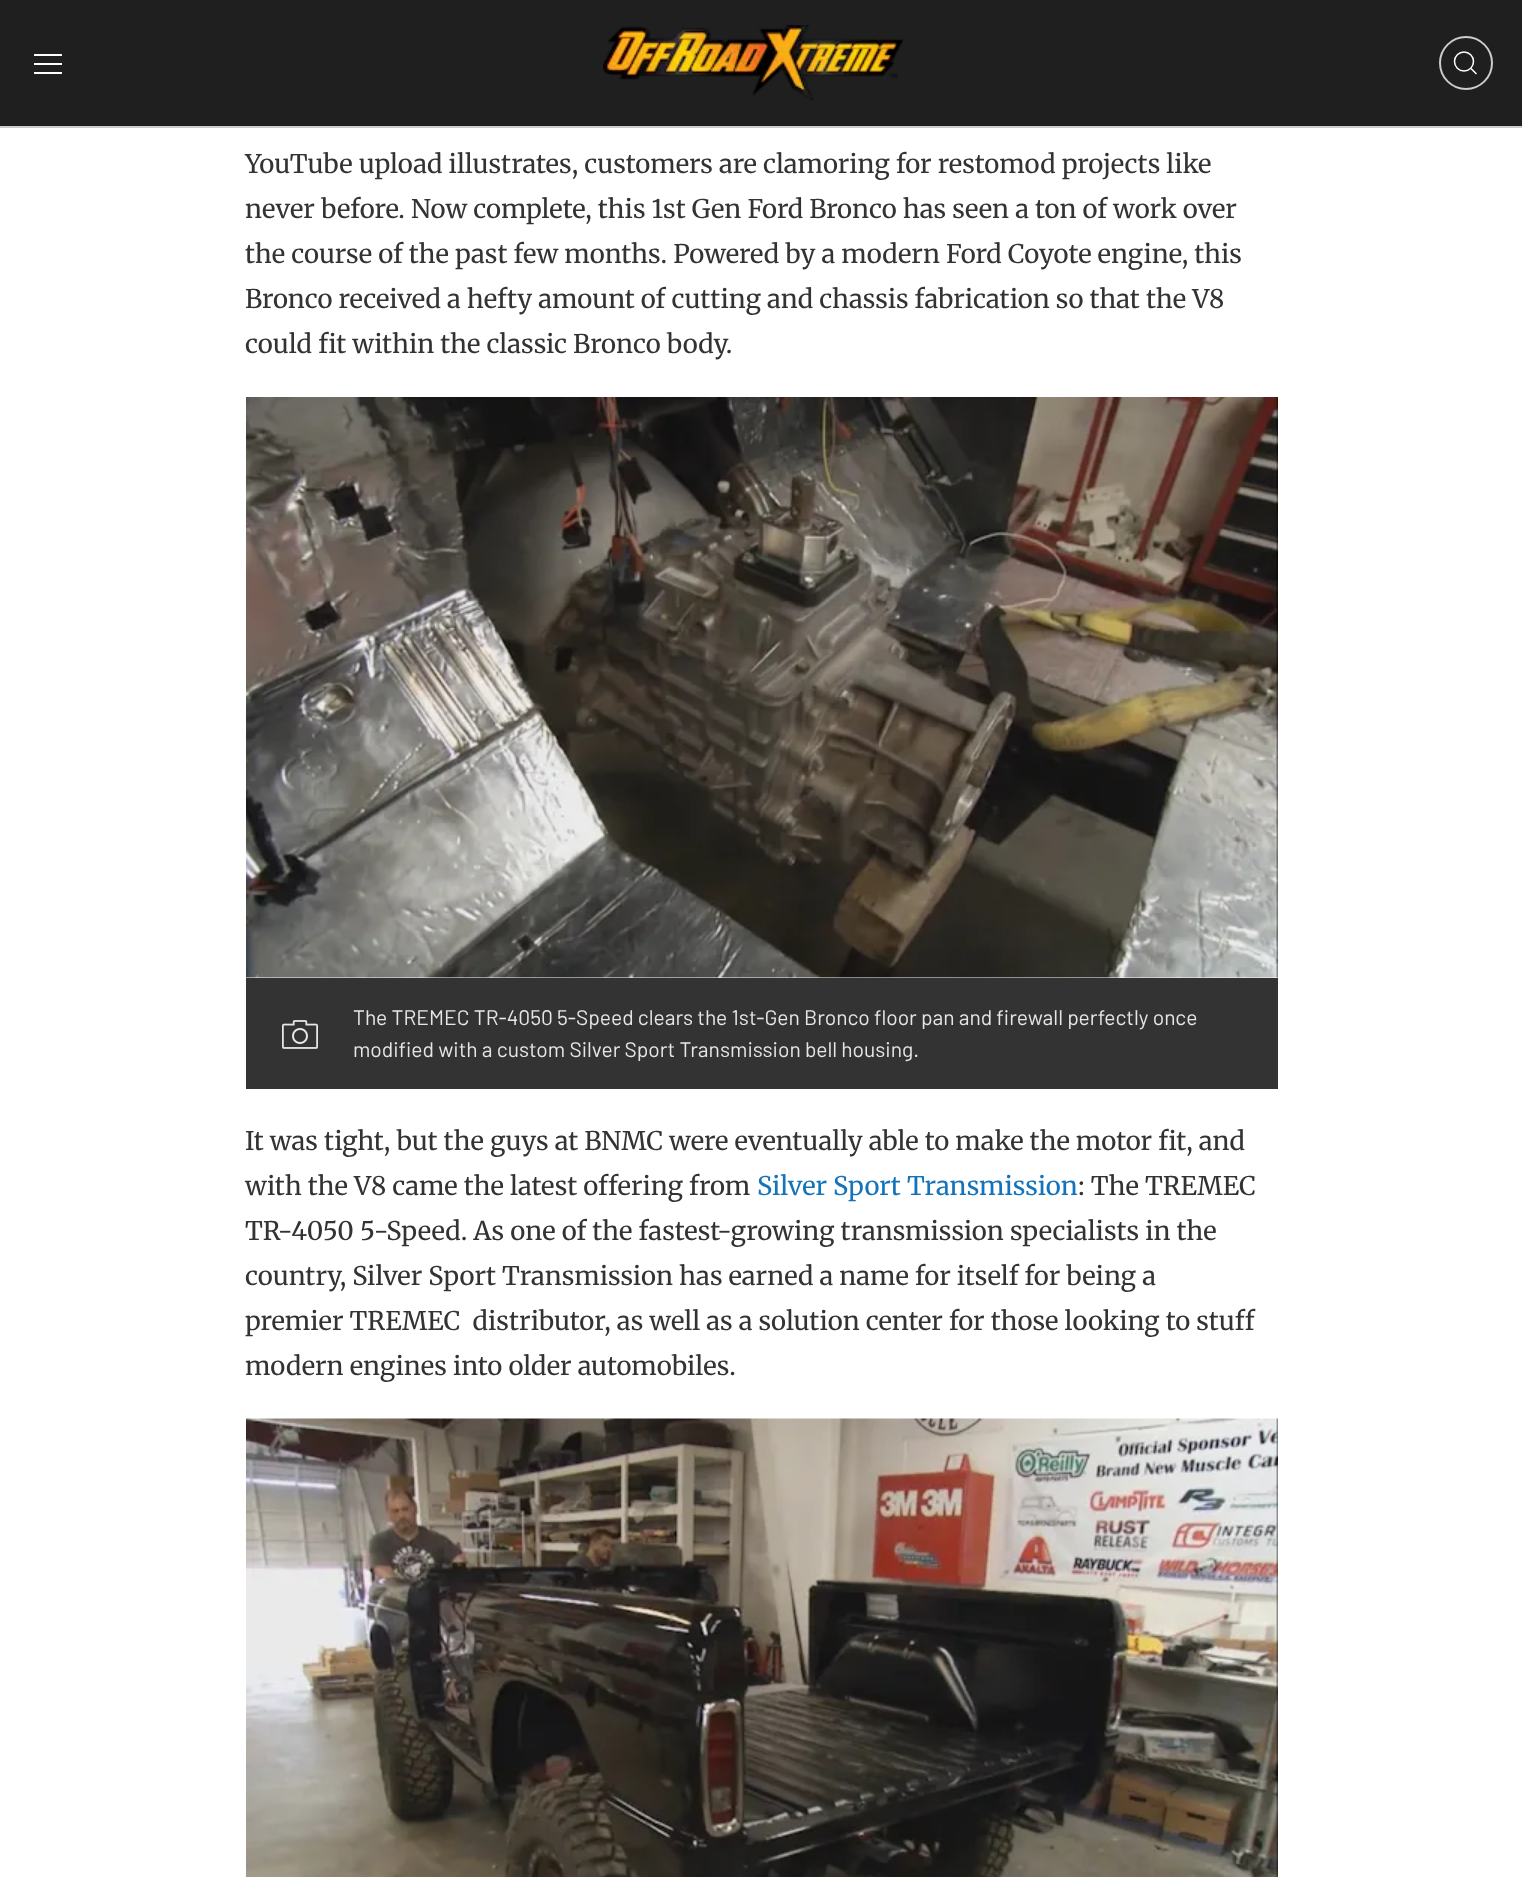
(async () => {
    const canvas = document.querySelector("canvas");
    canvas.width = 1522;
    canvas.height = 1877;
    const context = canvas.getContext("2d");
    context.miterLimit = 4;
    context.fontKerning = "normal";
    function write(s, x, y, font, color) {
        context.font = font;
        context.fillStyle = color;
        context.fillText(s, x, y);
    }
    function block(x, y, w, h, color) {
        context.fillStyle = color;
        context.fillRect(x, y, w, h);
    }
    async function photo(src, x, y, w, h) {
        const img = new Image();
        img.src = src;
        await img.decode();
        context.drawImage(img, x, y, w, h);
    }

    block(0, 0, 1522, 1877, "rgb(255, 255, 255)");
    block(0, 0, 1522, 126, "rgb(31, 31, 31)");
    block(0, 126, 1522, 2, "rgb(204, 204, 204)");
    block(34, 54, 28, 2, "rgb(255, 255, 255)");
    block(34, 63, 28, 2, "rgb(255, 255, 255)");
    block(34, 72, 28, 2, "rgb(255, 255, 255)");
    await photo("media/1.png", 603, 25, 300, 75);
    context.beginPath();
    context.arc(1466, 63, 26, 0, Math.PI * 2);
    context.strokeStyle = "rgb(204, 204, 204)";
    context.lineWidth = 2;
    context.stroke();
    context.beginPath();
    context.arc(1464, 61.5, 9.5, 0, Math.PI * 2);
    context.strokeStyle = "rgb(255, 255, 255)";
    context.lineWidth = 1.5;
    context.stroke();
    context.beginPath();
    context.moveTo(1471, 68.5);
    context.lineTo(1476.5, 74);
    context.closePath();
    context.stroke();
    write("YouTube upload illustrates, customers are clamoring for restomod projects like", 245, 173, "25.65px Merriweather", "rgb(51, 51, 51)");
    write("never before. Now complete, this 1st Gen Ford Bronco has seen a ton of work over", 245, 218, "25.65px Merriweather", "rgb(51, 51, 51)");
    write("the course of the past few months. Powered by a modern Ford Coyote engine, this", 245, 263, "25.65px Merriweather", "rgb(51, 51, 51)");
    write("Bronco received a hefty amount of cutting and chassis fabrication so that the V8", 245, 308, "25.65px Merriweather", "rgb(51, 51, 51)");
    write("could fit within the classic Bronco body.", 245, 353, "25.65px Merriweather", "rgb(51, 51, 51)");
    await photo("media/2.png", 246, 397, 1032, 581);
    block(246, 978, 1032, 111, "rgb(51, 51, 51)");
    await photo("media/3.png", 282, 1020, 36, 29);
    write("The TREMEC TR-4050 5-Speed clears the 1st-Gen Bronco floor pan and firewall perfectly once", 353, 1025, "21px Barlow", "rgb(230, 230, 230)");
    write("modified with a custom Silver Sport Transmission bell housing.", 353, 1057, "21px Barlow", "rgb(230, 230, 230)");
    write("It was tight, but the guys at BNMC were eventually able to make the motor fit, and", 245, 1150, "25.65px Merriweather", "rgb(51, 51, 51)");
    write("with the V8 came the latest offering from", 245, 1195, "25.65px Merriweather", "rgb(51, 51, 51)");
    write("Silver Sport Transmission", 757, 1195, "25.65px Merriweather", "rgb(21, 116, 185)");
    write(": The TREMEC", 1078, 1195, "25.65px Merriweather", "rgb(51, 51, 51)");
    write("TR-4050 5-Speed. As one of the fastest-growing transmission specialists in the", 245, 1240, "25.65px Merriweather", "rgb(51, 51, 51)");
    write("country, Silver Sport Transmission has earned a name for itself for being a", 245, 1285, "25.65px Merriweather", "rgb(51, 51, 51)");
    write("premier TREMEC  distributor, as well as a solution center for those looking to stuff", 245, 1330, "25.65px Merriweather", "rgb(51, 51, 51)");
    write("modern engines into older automobiles.", 245, 1375, "25.65px Merriweather", "rgb(51, 51, 51)");
    await photo("media/4.png", 246, 1418, 1032, 459);
})();
